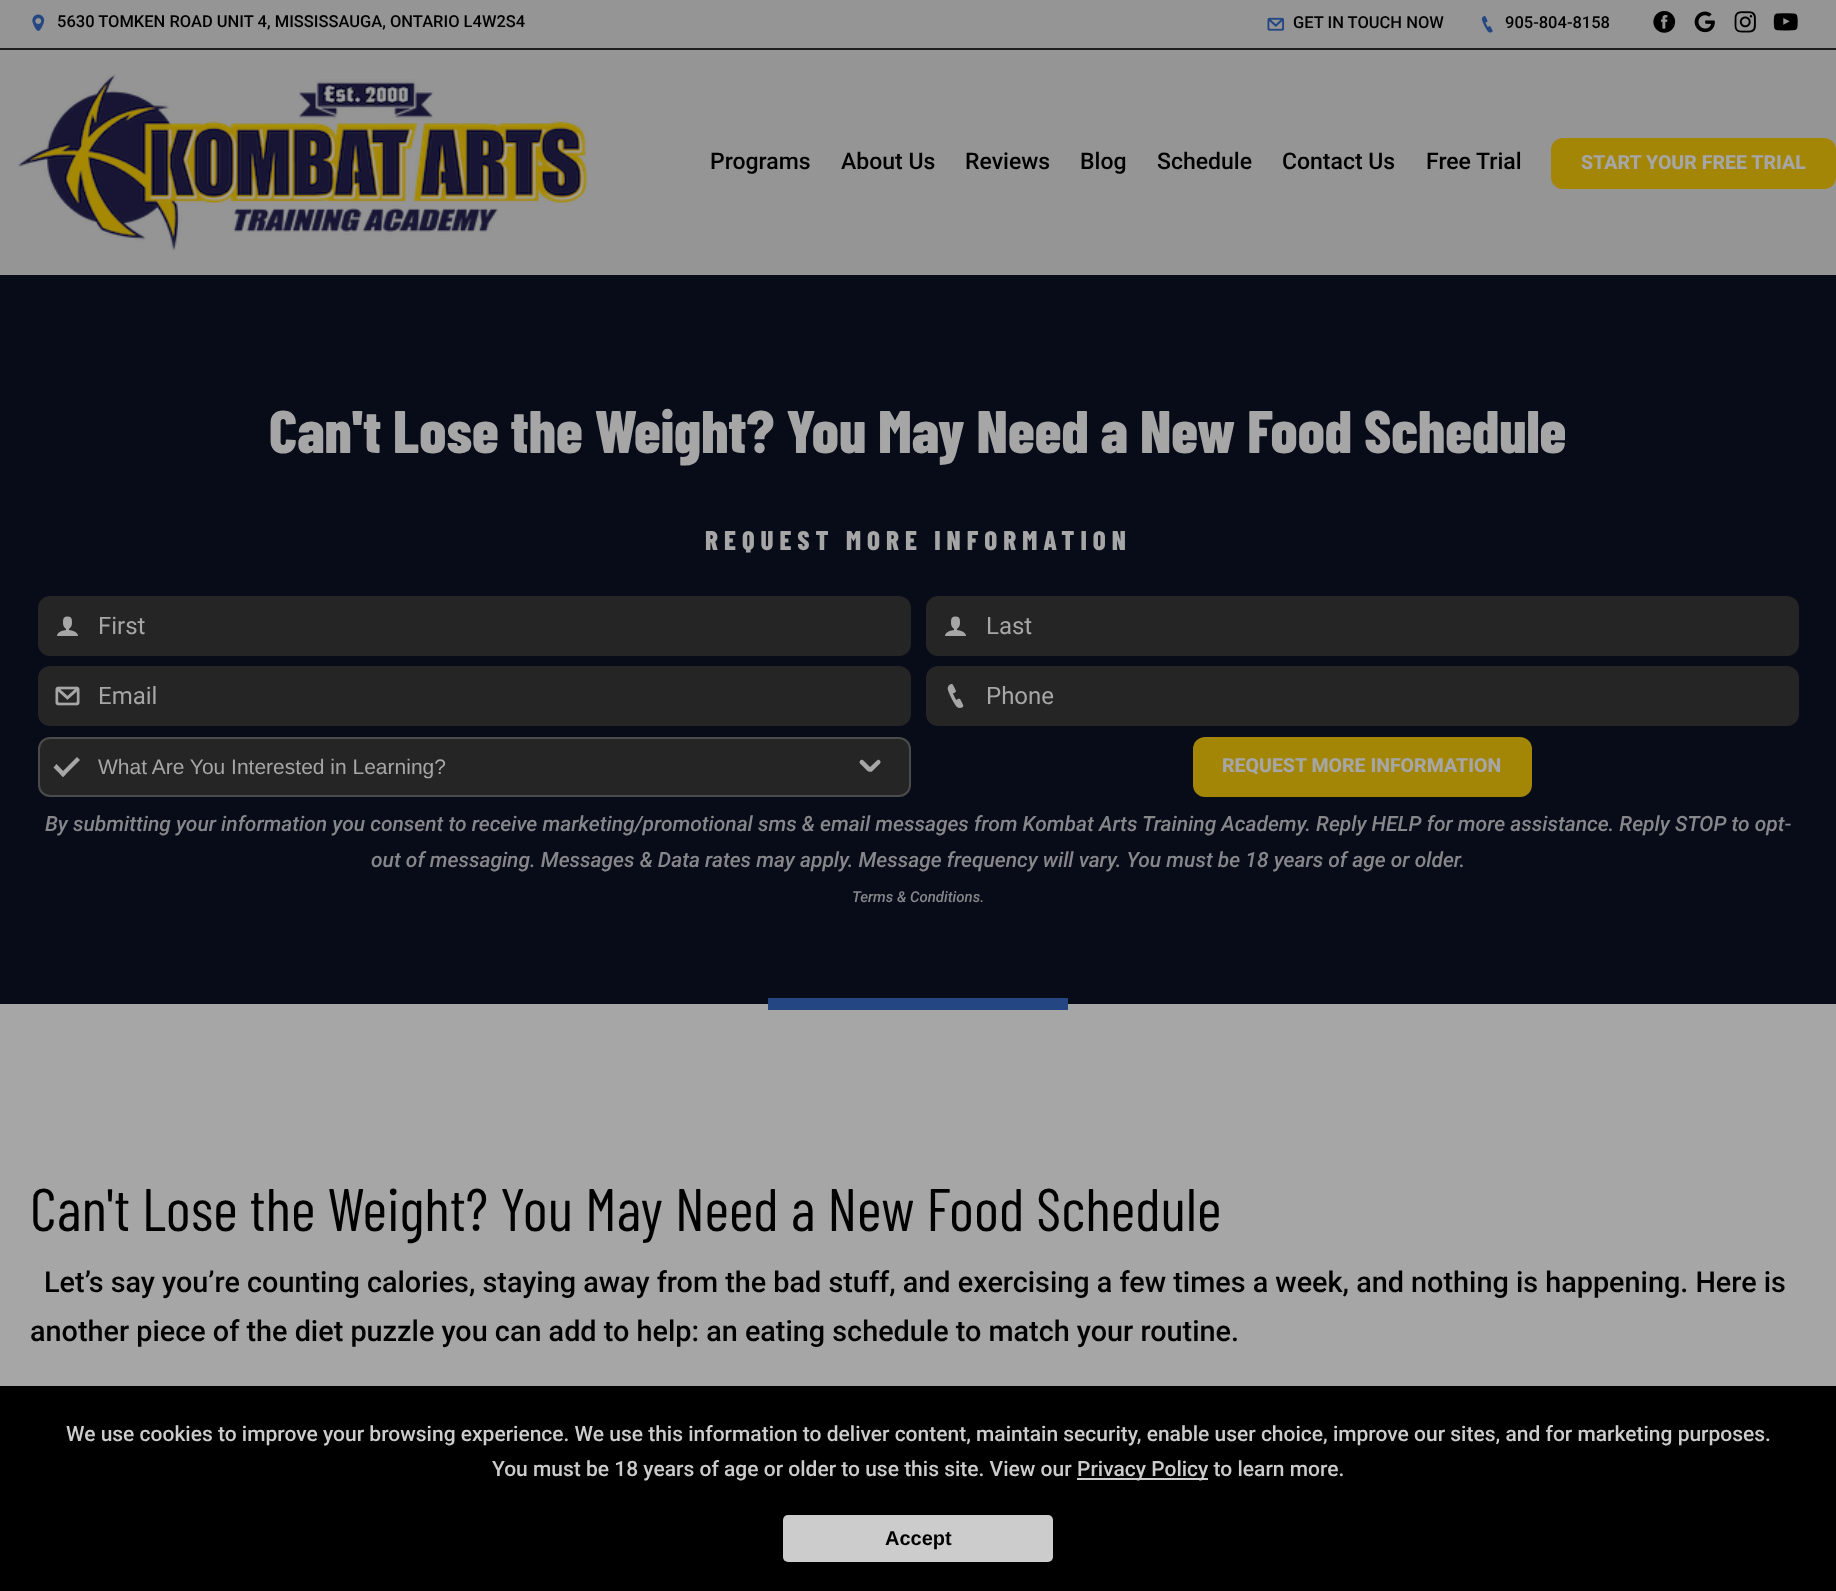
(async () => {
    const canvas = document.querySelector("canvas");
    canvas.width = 1836;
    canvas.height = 1591;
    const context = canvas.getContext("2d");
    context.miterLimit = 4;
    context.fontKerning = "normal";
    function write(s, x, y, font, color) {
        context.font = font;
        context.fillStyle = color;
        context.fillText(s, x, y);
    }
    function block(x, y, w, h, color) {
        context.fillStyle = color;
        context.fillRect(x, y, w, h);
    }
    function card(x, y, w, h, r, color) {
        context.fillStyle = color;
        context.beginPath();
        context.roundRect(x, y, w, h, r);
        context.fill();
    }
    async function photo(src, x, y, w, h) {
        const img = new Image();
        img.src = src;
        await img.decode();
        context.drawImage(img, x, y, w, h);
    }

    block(0, 0, 1836, 1591, "rgb(166, 166, 166)");
    block(0, 0, 1836, 275, "rgb(149, 149, 149)");
    block(0, 48, 1836, 2, "rgb(31, 31, 31)");
    await photo("media/1.png", 32, 14, 13, 17);
    write("5630 TOMKEN ROAD UNIT 4, MISSISSAUGA, ONTARIO L4W2S4", 57, 27, "500 16.5px Roboto", "rgb(0, 0, 0)");
    await photo("media/2.png", 1267, 17, 17, 14);
    write("GET IN TOUCH NOW", 1293, 28, "500 16.5px Roboto", "rgb(0, 0, 0)");
    await photo("media/3.png", 1481, 16, 12, 17);
    write("905-804-8158", 1505, 28, "500 16.5px Roboto", "rgb(0, 0, 0)");
    await photo("media/4.png", 1653, 11, 23, 22);
    await photo("media/5.png", 1694, 11, 21, 22);
    await photo("media/6.png", 1734, 11, 22, 22);
    await photo("media/7.png", 1773, 13, 25, 18);
    await photo("media/8.png", 18, 74, 570, 177);
    write("Programs", 710, 169, "500 23px Roboto", "rgb(0, 0, 0)");
    write("About Us", 841, 169, "500 23px Roboto", "rgb(0, 0, 0)");
    write("Reviews", 965, 169, "500 23px Roboto", "rgb(0, 0, 0)");
    write("Blog", 1080, 169, "500 23px Roboto", "rgb(0, 0, 0)");
    write("Schedule", 1157, 169, "500 23px Roboto", "rgb(0, 0, 0)");
    write("Contact Us", 1282, 169, "500 23px Roboto", "rgb(0, 0, 0)");
    write("Free Trial", 1426, 169, "500 23px Roboto", "rgb(0, 0, 0)");
    card(1551, 138, 285, 51, 12, "rgb(164, 134, 6)");
    write("START YOUR FREE TRIAL", 1581, 169, "800 19.5px Roboto", "rgb(166, 166, 166)");
    block(0, 275, 1836, 729, "rgb(8, 12, 25)");
    write("Can't Lose the Weight? You May Need a New Food Schedule", 269, 453, "800 60px Barlow Condensed", "rgb(166, 166, 166)");
    context.letterSpacing = "6px";
    write("REQUEST MORE INFORMATION", 705, 550, "800 27px Barlow Condensed", "rgb(166, 166, 166)");
    card(38, 596, 873, 60, 12, "rgb(37, 37, 37)");
    await photo("media/9.png", 57, 616, 21, 20);
    context.letterSpacing = "0px";
    write("First", 98, 634, "24px Roboto", "rgb(166, 166, 166)");
    card(926, 596, 873, 60, 12, "rgb(37, 37, 37)");
    await photo("media/9.png", 945, 616, 21, 20);
    write("Last", 986, 634, "24px Roboto", "rgb(166, 166, 166)");
    card(38, 666, 873, 60, 12, "rgb(37, 37, 37)");
    await photo("media/10.png", 55, 686, 25, 20);
    write("Email", 98, 704, "24px Roboto", "rgb(166, 166, 166)");
    card(926, 666, 873, 60, 12, "rgb(37, 37, 37)");
    await photo("media/11.png", 947, 684, 17, 24);
    write("Phone", 986, 704, "24px Roboto", "rgb(166, 166, 166)");
    card(38, 737, 873, 60, 12, "rgb(37, 37, 37)");
    context.beginPath();
    context.roundRect(39, 738, 871, 58, 11);
    context.strokeStyle = "rgba(166, 166, 166, 0.3)";
    context.lineWidth = 2;
    context.stroke();
    context.fillStyle = "rgb(166, 166, 166)";
    context.beginPath();
    context.moveTo(53.5, 767.5);
    context.lineTo(56.5, 764);
    context.lineTo(66, 774);
    context.lineTo(63, 777);
    context.closePath();
    context.fill();
    context.beginPath();
    context.moveTo(60, 774);
    context.lineTo(77, 757);
    context.lineTo(80, 760);
    context.lineTo(63, 777);
    context.closePath();
    context.fill();
    write("What Are You Interested in Learning?", 98, 774, "21px Liberation Sans", "rgb(166, 166, 166)");
    context.beginPath();
    context.moveTo(863.5, 760.5);
    context.lineTo(871.5, 768.5);
    context.bezierCurveTo(872, 771, 869.5, 772.5, 867.5, 771);
    context.lineTo(860, 763.5);
    context.bezierCurveTo(858.5, 761, 861.5, 758.5, 863.5, 760.5);
    context.closePath();
    context.fill();
    context.beginPath();
    context.moveTo(869, 768);
    context.lineTo(877.5, 760);
    context.bezierCurveTo(879.5, 759, 881.5, 762, 880, 763.5);
    context.lineTo(872, 771.5);
    context.bezierCurveTo(870, 773, 867.5, 769.5, 869, 768);
    context.closePath();
    context.fill();
    card(1193, 737, 339, 60, 12, "rgb(164, 134, 6)");
    write("REQUEST MORE INFORMATION", 1222, 772, "800 19.5px Roboto", "rgb(166, 166, 166)");
    write("By submitting your information you consent to receive marketing/promotional sms & email messages from Kombat Arts Training Academy. Reply HELP for more assistance. Reply STOP to opt-", 45, 831, "italic 500 21px Roboto", "rgb(134, 135, 138)");
    write("out of messaging. Messages & Data rates may apply. Message frequency will vary. You must be 18 years of age or older.", 371, 867, "italic 500 21px Roboto", "rgb(134, 135, 138)");
    write("Terms & Conditions.", 852, 902, "italic 500 15px Roboto", "rgb(134, 135, 138)");
    block(768, 998, 300, 12, "rgb(36, 70, 130)");
    write("Can't Lose the Weight? You May Need a New Food Schedule", 30, 1231, "60px Barlow Condensed", "rgb(0, 0, 0)");
    write("Let’s say you’re counting calories, staying away from the bad stuff, and exercising a few times a week, and nothing is happening. Here is", 44, 1292, "500 28.8px Roboto", "rgb(0, 0, 0)");
    write("another piece of the diet puzzle you can add to help: an eating schedule to match your routine.", 30, 1341, "500 28.8px Roboto", "rgb(0, 0, 0)");
    block(0, 1386, 1836, 205, "rgb(0, 0, 0)");
    write("We use cookies to improve your browsing experience. We use this information to deliver content, maintain security, enable user choice, improve our sites, and for marketing purposes.", 66, 1441, "500 21px Roboto", "rgb(204, 204, 204)");
    write("You must be 18 years of age or older to use this site. View our", 492, 1476, "500 21px Roboto", "rgb(204, 204, 204)");
    block(1077, 1478, 131, 2, "rgb(204, 204, 204)");
    write("Privacy Policy to learn more.", 1077, 1476, "500 21px Roboto", "rgb(204, 204, 204)");
    card(783, 1515, 270, 47, 5, "rgb(204, 204, 204)");
    write("Accept", 885, 1545, "bold 20px Liberation Sans", "rgb(0, 0, 0)");
})();
